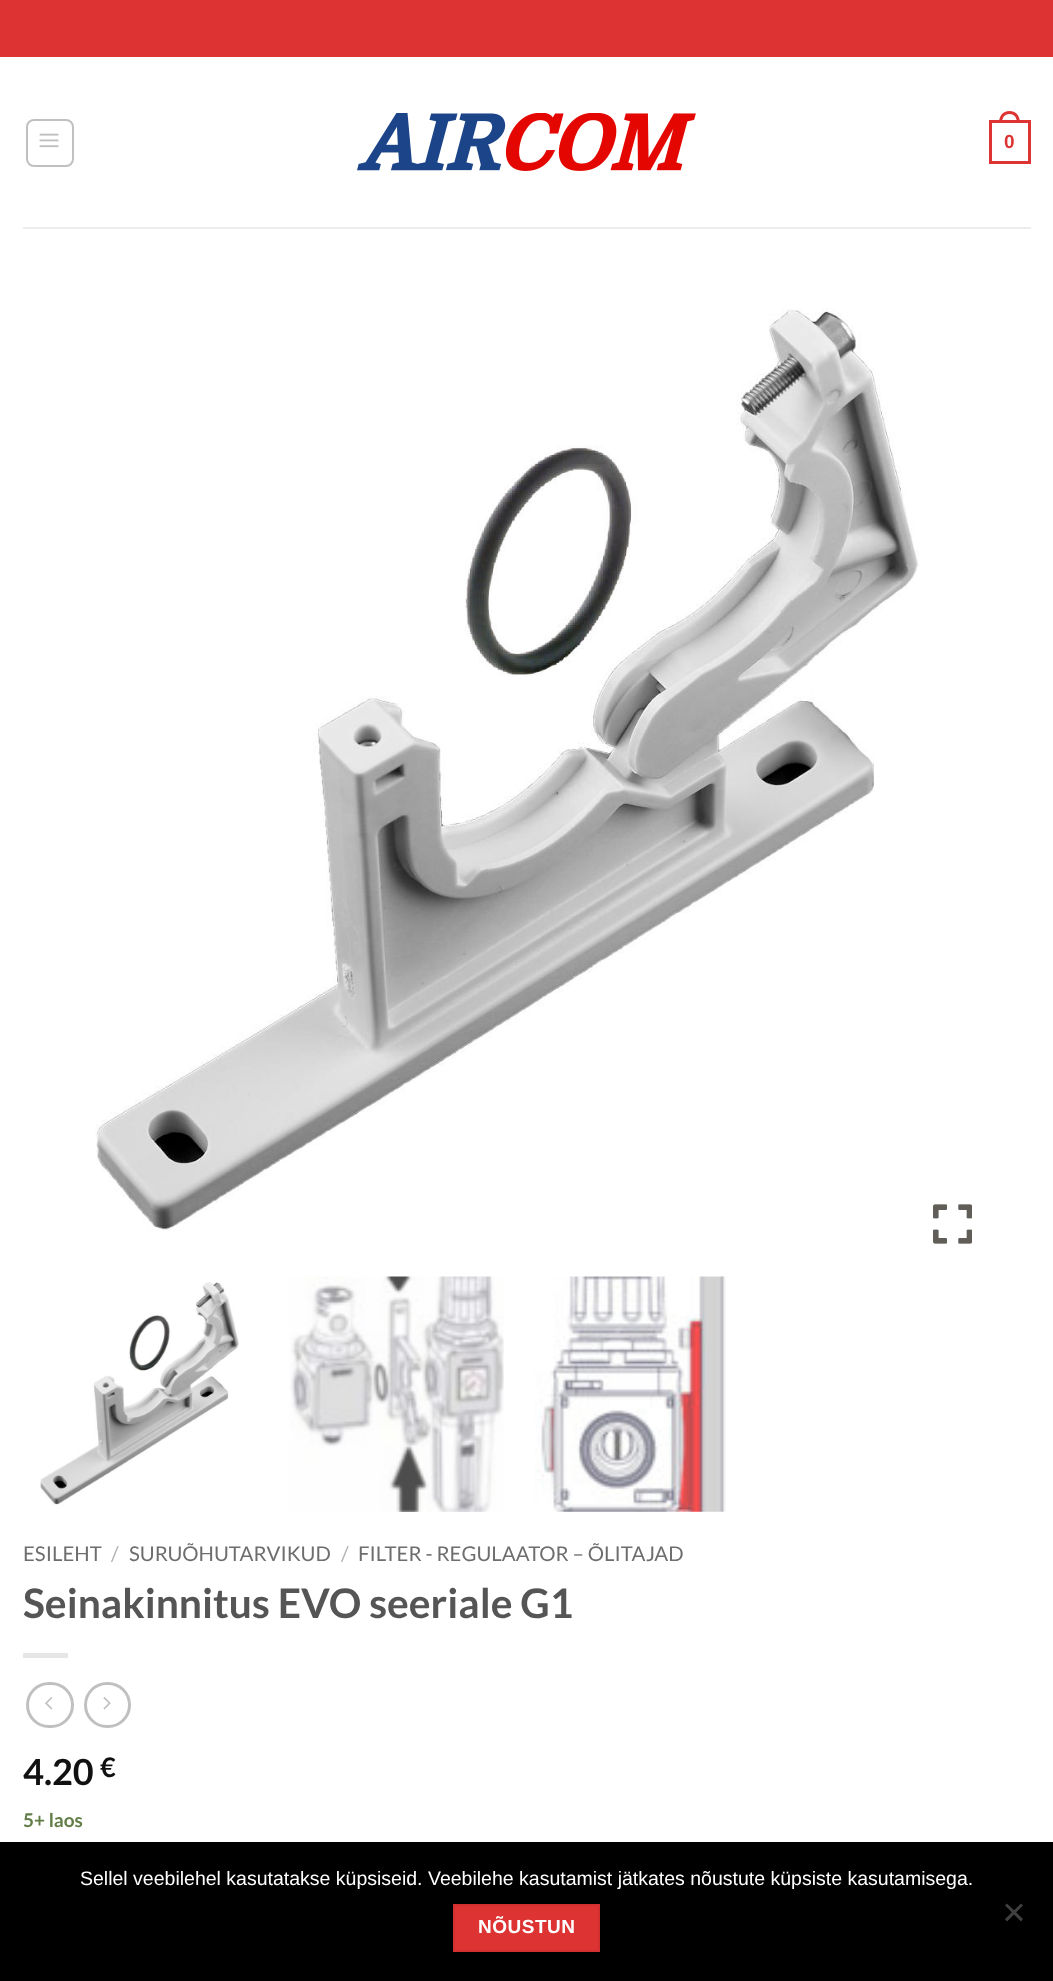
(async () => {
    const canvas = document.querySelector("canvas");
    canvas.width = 1053;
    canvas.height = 1981;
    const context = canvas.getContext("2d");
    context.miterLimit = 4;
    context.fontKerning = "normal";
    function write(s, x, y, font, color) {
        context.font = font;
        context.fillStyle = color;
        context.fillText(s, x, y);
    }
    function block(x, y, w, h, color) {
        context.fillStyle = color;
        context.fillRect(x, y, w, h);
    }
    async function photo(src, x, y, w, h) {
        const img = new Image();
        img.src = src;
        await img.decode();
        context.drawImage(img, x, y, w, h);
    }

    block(0, 0, 1053, 1981, "rgb(255, 255, 255)");
    block(0, 0, 1053, 57, "rgb(221, 51, 51)");
    context.beginPath();
    context.roundRect(27, 120, 46, 46, 7);
    context.strokeStyle = "rgb(192, 192, 192)";
    context.lineWidth = 2;
    context.stroke();
    await photo("media/1.png", 39, 133, 20, 15);
    await photo("media/2.png", 357, 113, 339, 58);
    context.strokeStyle = "rgb(221, 51, 51)";
    context.lineWidth = 3;
    context.strokeRect(990.5, 121.5, 39, 41);
    context.beginPath();
    context.moveTo(1009.5, 111);
    context.bezierCurveTo(1016.5, 111, 1020, 116.5, 1020, 123);
    context.lineTo(999, 123);
    context.bezierCurveTo(999, 116.5, 1002.5, 111, 1009.5, 111);
    context.closePath();
    context.moveTo(1009.5, 114);
    context.bezierCurveTo(1015, 114, 1017, 118.5, 1017, 123);
    context.lineTo(1002, 123);
    context.bezierCurveTo(1002, 118.5, 1004, 114, 1009.5, 114);
    context.closePath();
    context.fill("evenodd");
    write("0", 1004, 148, "bold 19px Liberation Sans", "rgb(221, 51, 51)");
    block(23, 227, 1008, 2, "rgb(237, 237, 237)");
    await photo("media/3.png", 95, 308, 824, 923);
    await photo("media/4.png", 933, 1204, 39, 40);
    await photo("media/5.png", 40, 1282, 199, 223);
    await photo("media/6.png", 289, 1276, 215, 236);
    await photo("media/7.png", 534, 1276, 192, 236);
    write("ESILEHT", 23, 1561, "20.4px Lato", "rgb(110, 110, 110)");
    write("/", 111, 1561, "20.4px Lato", "rgb(178, 178, 178)");
    write("SURUÕHUTARVIKUD", 129, 1561, "20.4px Lato", "rgb(110, 110, 110)");
    write("/", 341, 1561, "20.4px Lato", "rgb(178, 178, 178)");
    write("FILTER - REGULAATOR – ÕLITAJAD", 358, 1561, "20.4px Lato", "rgb(110, 110, 110)");
    write("Seinakinnitus EVO seeriale G1", 23, 1618, "bold 40.75px Lato", "rgb(85, 85, 85)");
    block(23, 1653, 45, 5, "rgb(230, 230, 230)");
    context.beginPath();
    context.roundRect(27.5, 1683.5, 45, 43, 21.5);
    context.strokeStyle = "rgb(192, 192, 192)";
    context.stroke();
    await photo("media/8.png", 45, 1697, 8, 13);
    context.beginPath();
    context.roundRect(85.5, 1683.5, 44, 43, 21.5);
    context.stroke();
    await photo("media/9.png", 103, 1697, 8, 13);
    write("4.20", 23, 1785, "bold 36px Lato", "rgb(17, 17, 17)");
    write("€", 100, 1777, "bold 27px Lato", "rgb(17, 17, 17)");
    write("5+ laos", 23, 1827, "bold 19px Lato", "rgb(98, 125, 71)");
    block(0, 1842, 1053, 139, "rgb(0, 0, 0)");
    write("Sellel veebilehel kasutatakse küpsiseid. Veebilehe kasutamist jätkates nõustute küpsiste kasutamisega.", 80, 1885, "19.5px Liberation Sans", "rgb(255, 255, 255)");
    context.fillStyle = "rgb(64, 64, 64)";
    context.beginPath();
    context.moveTo(1021, 1903.5);
    context.lineTo(1023, 1905.5);
    context.lineTo(1007, 1921.5);
    context.lineTo(1005, 1919);
    context.closePath();
    context.fill();
    context.beginPath();
    context.moveTo(1005, 1905.5);
    context.lineTo(1007, 1903.5);
    context.lineTo(1023, 1919);
    context.lineTo(1021, 1921.5);
    context.closePath();
    context.fill();
    context.fillStyle = "rgb(221, 51, 51)";
    context.beginPath();
    context.rect(454, 1905, 145, 46);
    context.fill();
    context.strokeStyle = "rgb(210, 48, 48)";
    context.lineWidth = 2;
    context.stroke();
    context.letterSpacing = "0.5px";
    write("NÕUSTUN", 478, 1933, "bold 19px Liberation Sans", "rgb(255, 255, 255)");
})();
